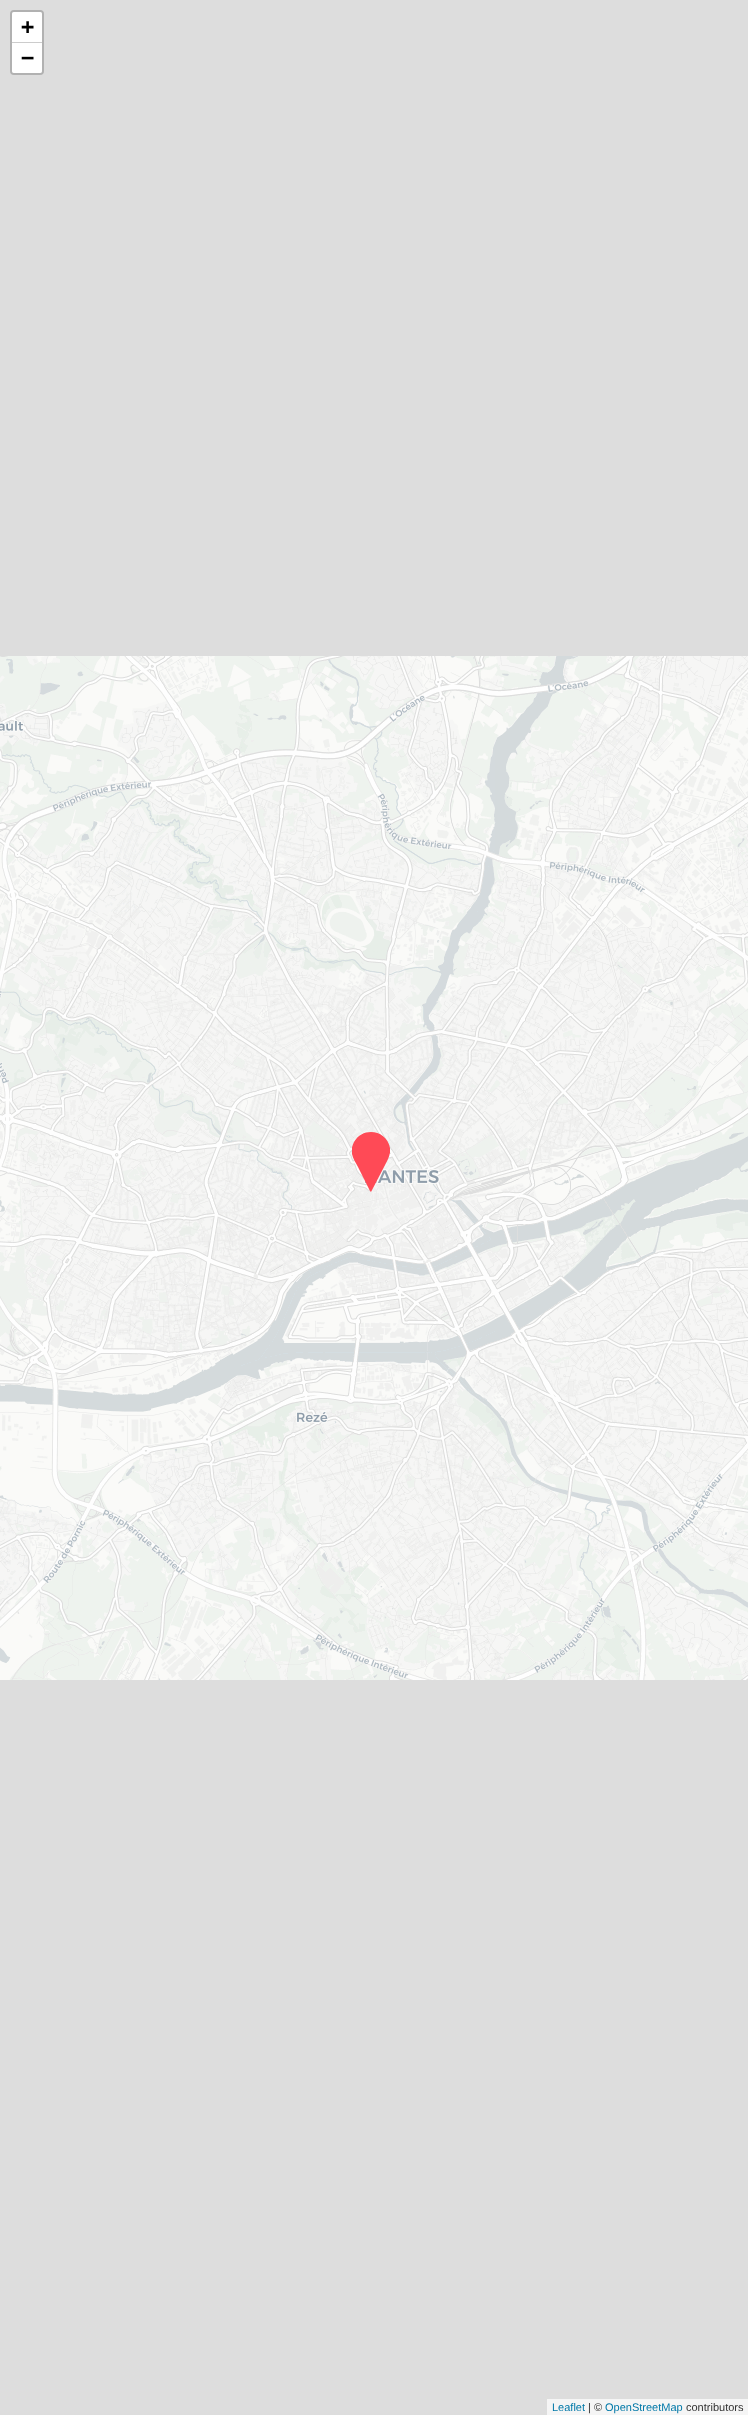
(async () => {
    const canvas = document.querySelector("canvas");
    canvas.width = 748;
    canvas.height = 2415;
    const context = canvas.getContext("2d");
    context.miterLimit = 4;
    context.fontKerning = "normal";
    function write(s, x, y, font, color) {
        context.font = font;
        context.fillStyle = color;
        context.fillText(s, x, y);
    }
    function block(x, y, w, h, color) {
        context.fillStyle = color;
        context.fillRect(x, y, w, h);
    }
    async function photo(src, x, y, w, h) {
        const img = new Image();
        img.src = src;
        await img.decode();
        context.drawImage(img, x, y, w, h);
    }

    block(0, 0, 748, 2415, "rgb(221, 221, 221)");
    context.beginPath();
    context.roundRect(11, 11, 32, 63, 3);
    context.strokeStyle = "rgb(177, 177, 177)";
    context.lineWidth = 2;
    context.stroke();
    context.fillStyle = "rgb(255, 255, 255)";
    context.beginPath();
    context.roundRect(12, 12, 30, 31, [2, 2, 0, 0]);
    context.fill();
    block(12, 42, 30, 1, "rgb(204, 204, 204)");
    write("+", 21, 34, "bold 22px DejaVu Sans Mono", "rgb(0, 0, 0)");
    context.fillStyle = "rgb(255, 255, 255)";
    context.beginPath();
    context.roundRect(12, 43, 30, 30, [0, 0, 2, 2]);
    context.fill();
    write("−", 21, 65, "bold 22px DejaVu Sans Mono", "rgb(0, 0, 0)");
    block(547, 2399, 201, 16, "rgb(245, 245, 245)");
    write("Leaflet", 552, 2411, "11px Liberation Sans", "rgb(0, 120, 168)");
    write("| ©", 588, 2411, "11px Liberation Sans", "rgb(51, 51, 51)");
    write("OpenStreetMap", 605, 2411, "11px Liberation Sans", "rgb(0, 120, 168)");
    write("contributors", 686, 2411, "11px Liberation Sans", "rgb(51, 51, 51)");
    await photo("media/1.png", 0, 656, 239, 256);
    await photo("media/2.png", 239, 656, 256, 256);
    await photo("media/3.png", 495, 656, 253, 256);
    await photo("media/4.png", 0, 912, 239, 256);
    await photo("media/5.png", 239, 912, 256, 256);
    await photo("media/6.png", 495, 912, 253, 256);
    await photo("media/7.png", 0, 1168, 239, 256);
    await photo("media/8.png", 239, 1168, 256, 256);
    await photo("media/9.png", 495, 1168, 253, 256);
    await photo("media/10.png", 0, 1424, 239, 256);
    await photo("media/11.png", 239, 1424, 256, 256);
    await photo("media/12.png", 495, 1424, 253, 256);
    context.save();
    context.beginPath();
    context.rect(352, 1114, 38, 95);
    context.clip();
    context.fillStyle = "rgb(255, 74, 86)";
    context.beginPath();
    context.moveTo(390, 1148);
    context.bezierCurveTo(387, 1130, 363, 1126, 354, 1142);
    context.bezierCurveTo(352, 1146, 351, 1150, 352, 1154);
    context.bezierCurveTo(353, 1159, 356, 1163, 358, 1167);
    context.lineTo(370, 1191);
    context.bezierCurveTo(371, 1192, 371, 1192, 371, 1192);
    context.lineTo(384, 1167);
    context.bezierCurveTo(387, 1161, 391, 1155, 390, 1148);
    context.fill();
    context.restore();
})();
